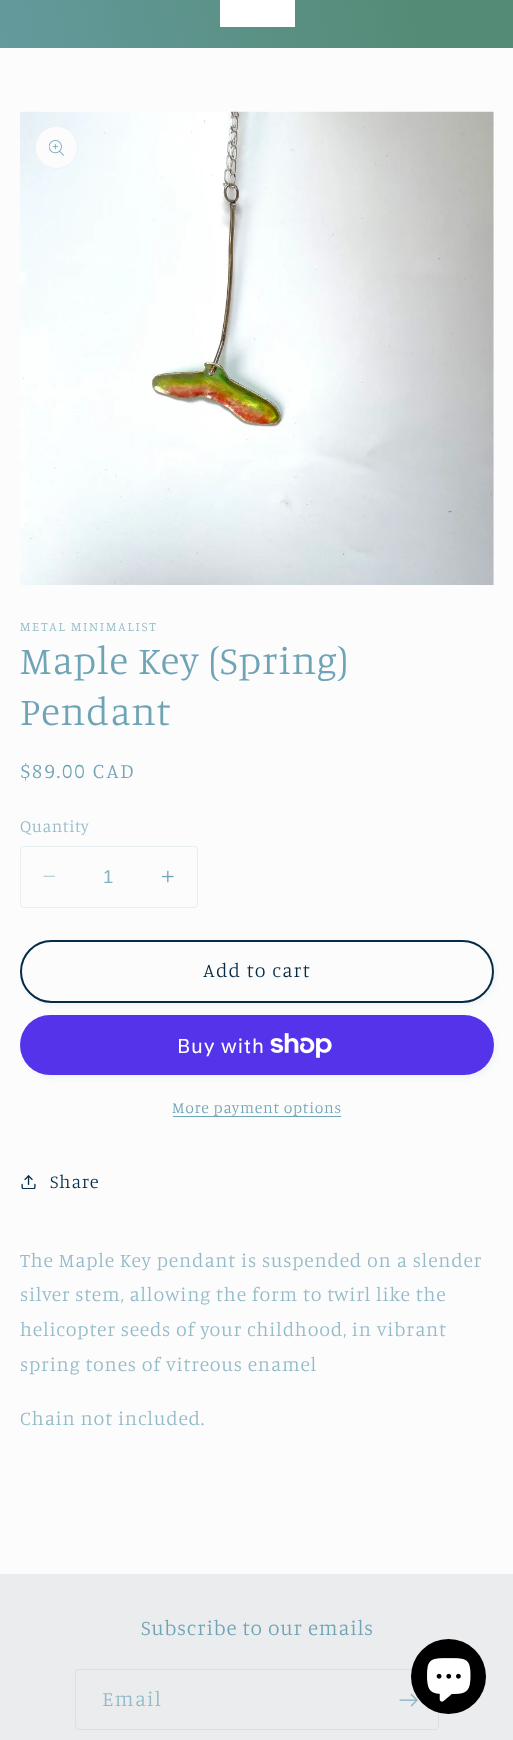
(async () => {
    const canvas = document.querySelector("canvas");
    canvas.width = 513;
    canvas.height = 1740;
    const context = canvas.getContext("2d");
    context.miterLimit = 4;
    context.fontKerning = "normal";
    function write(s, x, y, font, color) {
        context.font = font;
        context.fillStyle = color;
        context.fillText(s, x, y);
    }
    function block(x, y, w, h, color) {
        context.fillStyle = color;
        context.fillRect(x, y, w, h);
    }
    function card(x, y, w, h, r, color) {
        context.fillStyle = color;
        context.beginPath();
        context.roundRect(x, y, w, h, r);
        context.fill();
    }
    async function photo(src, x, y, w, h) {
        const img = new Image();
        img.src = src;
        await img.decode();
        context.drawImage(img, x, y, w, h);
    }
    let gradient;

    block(0, 0, 513, 1740, "rgb(252, 252, 252)");
    gradient = context.createLinearGradient(-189, 981, 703, 759);
    gradient.addColorStop(0.13, "rgb(111, 164, 183)");
    gradient.addColorStop(0.9, "rgb(84, 139, 118)");
    context.fillStyle = gradient;
    context.fillRect(0, 0, 513, 48);
    block(220, 0, 75, 27, "rgb(255, 255, 255)");
    await photo("media/1.png", 20, 111, 474, 474);
    context.fillStyle = "rgb(252, 252, 252)";
    context.beginPath();
    context.arc(56.5, 147.5, 21.5, 0, Math.PI * 2);
    context.fill();
    context.beginPath();
    context.arc(56.5, 147.5, 21, 0, Math.PI * 2);
    context.strokeStyle = "rgba(111, 164, 183, 0.1)";
    context.stroke();
    await photo("media/2.png", 49, 140, 15, 16);
    context.letterSpacing = "1.75px";
    write("METAL MINIMALIST", 20, 631, "300 13.1px Manuale", "rgb(146, 186, 200)");
    context.letterSpacing = "0.8px";
    write("Maple Key (Spring)", 20, 674, "300 39.5px Manuale", "rgb(111, 164, 183)");
    write("Pendant", 20, 725, "300 39.5px Manuale", "rgb(111, 164, 183)");
    context.letterSpacing = "1.75px";
    write("$89.00 CAD", 20, 778, "300 21px Manuale", "rgb(111, 164, 183)");
    context.letterSpacing = "0.5px";
    write("Quantity", 20, 832, "300 17px Manuale", "rgb(146, 186, 200)");
    await photo("media/3.png", 43, 875, 12, 2);
    await photo("media/4.png", 162, 870, 12, 13);
    context.beginPath();
    context.roundRect(20.5, 846.5, 177, 61, 3.5);
    context.strokeStyle = "rgb(231, 239, 242)";
    context.stroke();
    context.letterSpacing = "0px";
    write("1", 103, 883, "18.5px Liberation Sans", "rgb(132, 177, 193)");
    context.fillStyle = "rgba(111, 164, 183, 0.1)";
    context.filter = "blur(3px)";
    context.beginPath();
    context.roundRect(23, 943, 473, 62, 31);
    context.fill();
    context.filter = "none";
    card(20, 940, 474, 63, 31.5, "rgb(252, 252, 252)");
    context.beginPath();
    context.roundRect(20.5, 940.5, 473, 62, 31);
    context.strokeStyle = "rgb(252, 252, 252)";
    context.stroke();
    context.beginPath();
    context.roundRect(21, 941, 472, 61, 30.5);
    context.strokeStyle = "rgb(5, 44, 70)";
    context.lineWidth = 2;
    context.stroke();
    context.letterSpacing = "1.25px";
    write("Add to cart", 203, 977, "300 19.7px Manuale", "rgb(5, 44, 70)");
    context.fillStyle = "rgba(111, 164, 183, 0.1)";
    context.filter = "blur(3px)";
    context.beginPath();
    context.roundRect(23, 1018, 473, 60, 30);
    context.fill();
    context.filter = "none";
    card(20, 1015, 474, 60, 30, "rgb(84, 51, 235)");
    context.letterSpacing = "0.8px";
    write("Buy with", 177, 1053, "20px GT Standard", "rgb(255, 255, 255)");
    await photo("media/5.png", 270, 1033, 62, 25);
    context.letterSpacing = "0.7px";
    write("More payment options", 172, 1113, "300 15.75px Manuale", "rgb(111, 164, 183)");
    block(173, 1116, 168, 1, "rgb(111, 164, 183)");
    await photo("media/6.png", 21, 1175, 15, 14);
    context.letterSpacing = "0.8px";
    write("Share", 50, 1188, "300 18.5px Manuale", "rgb(5, 44, 70)");
    write("The Maple Key pendant is suspended on a slender", 20, 1267, "300 19.7px Manuale", "rgb(146, 186, 200)");
    write("silver stem, allowing the form to twirl like the", 20, 1301, "300 19.7px Manuale", "rgb(146, 186, 200)");
    write("helicopter seeds of your childhood, in vibrant", 20, 1336, "300 19.7px Manuale", "rgb(146, 186, 200)");
    write("spring tones of vitreous enamel", 20, 1371, "300 19.7px Manuale", "rgb(146, 186, 200)");
    write("Chain not included.", 20, 1425, "300 19.7px Manuale", "rgb(146, 186, 200)");
    block(0, 1574, 513, 166, "rgb(235, 236, 237)");
    write("Subscribe to our emails", 141, 1635, "300 21px Manuale", "rgb(111, 164, 183)");
    context.beginPath();
    context.roundRect(75.5, 1669.5, 363, 60, 3.5);
    context.strokeStyle = "rgb(216, 225, 229)";
    context.lineWidth = 1;
    context.stroke();
    context.letterSpacing = "1.25px";
    write("Email", 102, 1706, "300 21px Manuale", "rgb(146, 186, 200)");
    await photo("media/7.png", 399, 1693, 19, 14);
    context.fillStyle = "rgb(0, 0, 0)";
    context.beginPath();
    context.arc(448.5, 1676.5, 37.5, 0, Math.PI * 2);
    context.fill();
    await photo("media/8.png", 427, 1658, 44, 44);
})();
